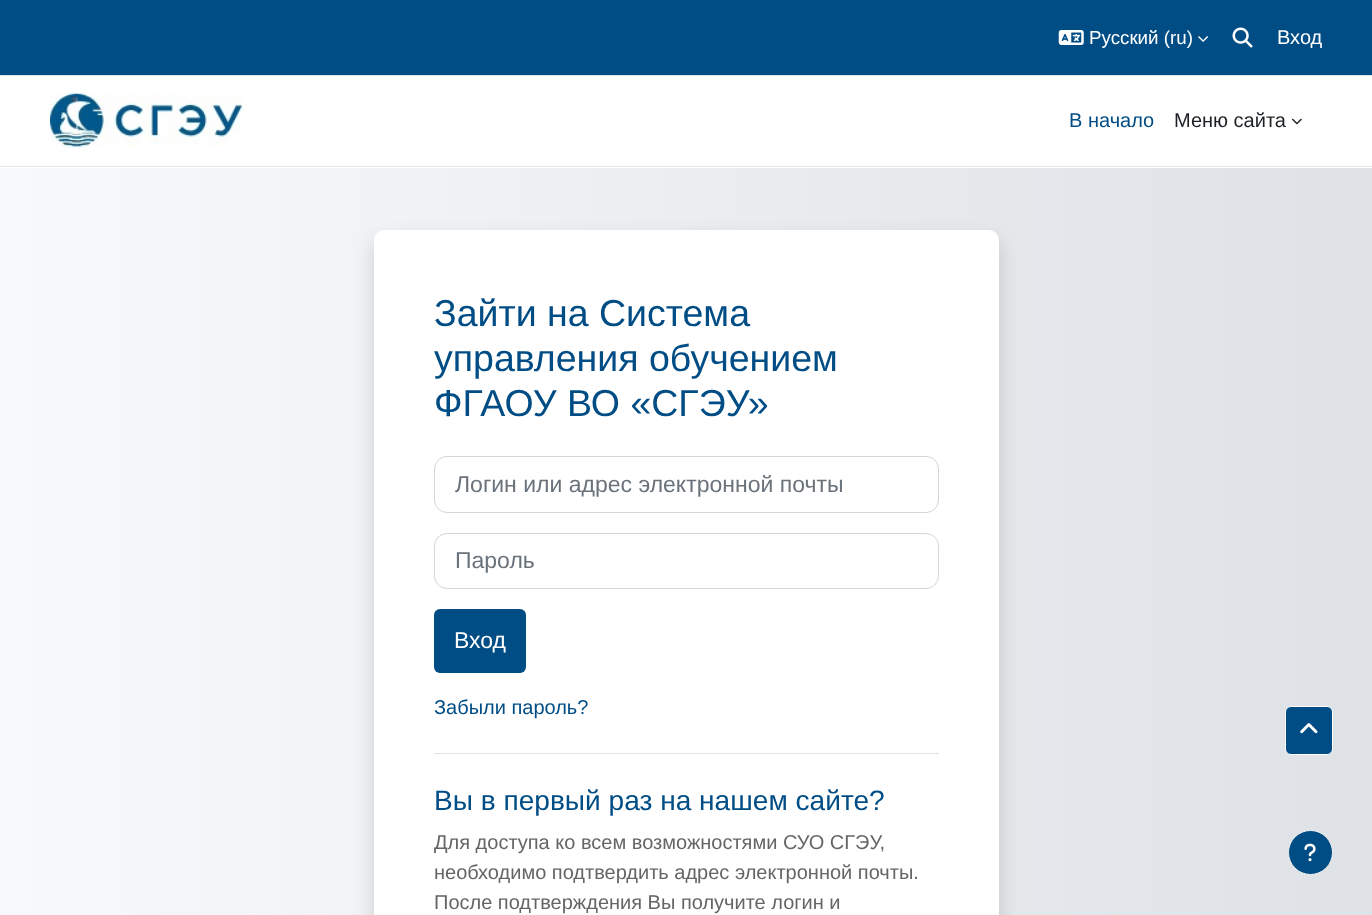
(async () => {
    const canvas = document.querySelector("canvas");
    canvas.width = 1372;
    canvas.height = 915;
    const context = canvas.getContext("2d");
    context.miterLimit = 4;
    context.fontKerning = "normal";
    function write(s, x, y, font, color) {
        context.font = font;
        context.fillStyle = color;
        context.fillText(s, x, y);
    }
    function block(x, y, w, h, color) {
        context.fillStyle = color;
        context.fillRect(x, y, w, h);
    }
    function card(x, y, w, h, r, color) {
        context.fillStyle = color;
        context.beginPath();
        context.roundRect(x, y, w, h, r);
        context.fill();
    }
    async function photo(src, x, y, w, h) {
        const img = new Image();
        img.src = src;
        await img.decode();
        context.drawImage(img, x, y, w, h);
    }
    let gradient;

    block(0, 0, 1372, 915, "rgb(255, 255, 255)");
    block(0, 0, 1372, 75, "rgb(0, 77, 133)");
    block(0, 75, 1372, 1, "rgb(232, 227, 227)");
    await photo("media/1.png", 1058, 30, 26, 15);
    write("Русский (ru)", 1089, 44, "18.75px Liberation Sans", "rgb(255, 255, 255)");
    await photo("media/2.png", 1198, 36, 10, 6);
    await photo("media/3.png", 1232, 27, 21, 21);
    write("Вход", 1277, 44, "20px Liberation Sans", "rgb(255, 255, 255)");
    block(0, 166, 1372, 1, "rgb(232, 227, 227)");
    await photo("media/4.png", 50, 93, 193, 55);
    write("В начало", 1069, 127, "20px Liberation Sans", "rgb(0, 77, 133)");
    write("Меню сайта", 1174, 127, "20px Liberation Sans", "rgb(29, 33, 37)");
    await photo("media/5.png", 1292, 118, 10, 7);
    gradient = context.createLinearGradient(0, 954, 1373, 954);
    gradient.addColorStop(0, "rgb(248, 249, 250)");
    gradient.addColorStop(1, "rgb(222, 226, 230)");
    context.fillStyle = gradient;
    context.fillRect(0, 168, 1372, 747);
    context.fillStyle = "rgba(0, 0, 0, 0.15)";
    context.filter = "blur(10px)";
    context.beginPath();
    context.roundRect(374, 240, 625, 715, 10);
    context.fill();
    context.filter = "none";
    card(374, 230, 625, 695, 10, "rgb(255, 255, 255)");
    write("Зайти на Система", 434, 326, "37.5px Liberation Sans", "rgb(0, 77, 133)");
    write("управления обучением", 434, 371, "37.5px Liberation Sans", "rgb(0, 77, 133)");
    write("ФГАОУ ВО «СГЭУ»", 434, 416, "37.5px Liberation Sans", "rgb(0, 77, 133)");
    context.beginPath();
    context.roundRect(434.5, 456.5, 504, 56, 12.5);
    context.strokeStyle = "rgb(213, 213, 213)";
    context.stroke();
    write("Логин или адрес электронной почты", 455, 492, "23px Liberation Sans", "rgb(106, 115, 123)");
    context.beginPath();
    context.roundRect(434.5, 533.5, 504, 55, 12.5);
    context.stroke();
    write("Пароль", 455, 568, "23px Liberation Sans", "rgb(106, 115, 123)");
    card(434, 609, 92, 64, 6, "rgb(0, 77, 133)");
    write("Вход", 454, 648, "23px Liberation Sans", "rgb(255, 255, 255)");
    write("Забыли пароль?", 434, 714, "20px Liberation Sans", "rgb(0, 77, 133)");
    block(434, 753, 505, 1, "rgb(222, 226, 230)");
    write("Вы в первый раз на нашем сайте?", 434, 810, "28.1px Liberation Sans", "rgb(0, 77, 133)");
    write("Для доступа ко всем возможностями СУО СГЭУ,", 434, 849, "20px Liberation Sans", "rgb(101, 101, 101)");
    write("необходимо подтвердить адрес электронной почты.", 434, 879, "20px Liberation Sans", "rgb(101, 101, 101)");
    write("После подтверждения Вы получите логин и", 434, 909, "20px Liberation Sans", "rgb(101, 101, 101)");
    context.fillStyle = "rgb(0, 77, 133)";
    context.beginPath();
    context.roundRect(1285.5, 706.5, 47, 48, 5.5);
    context.fill();
    context.strokeStyle = "rgb(255, 255, 255)";
    context.stroke();
    await photo("media/6.png", 1300, 723, 18, 11);
    context.beginPath();
    context.arc(1310.5, 852.5, 22, 0, Math.PI * 2);
    context.fill();
    context.strokeStyle = "rgb(238, 238, 238)";
    context.stroke();
    await photo("media/7.png", 1304, 843, 12, 19);
})();
